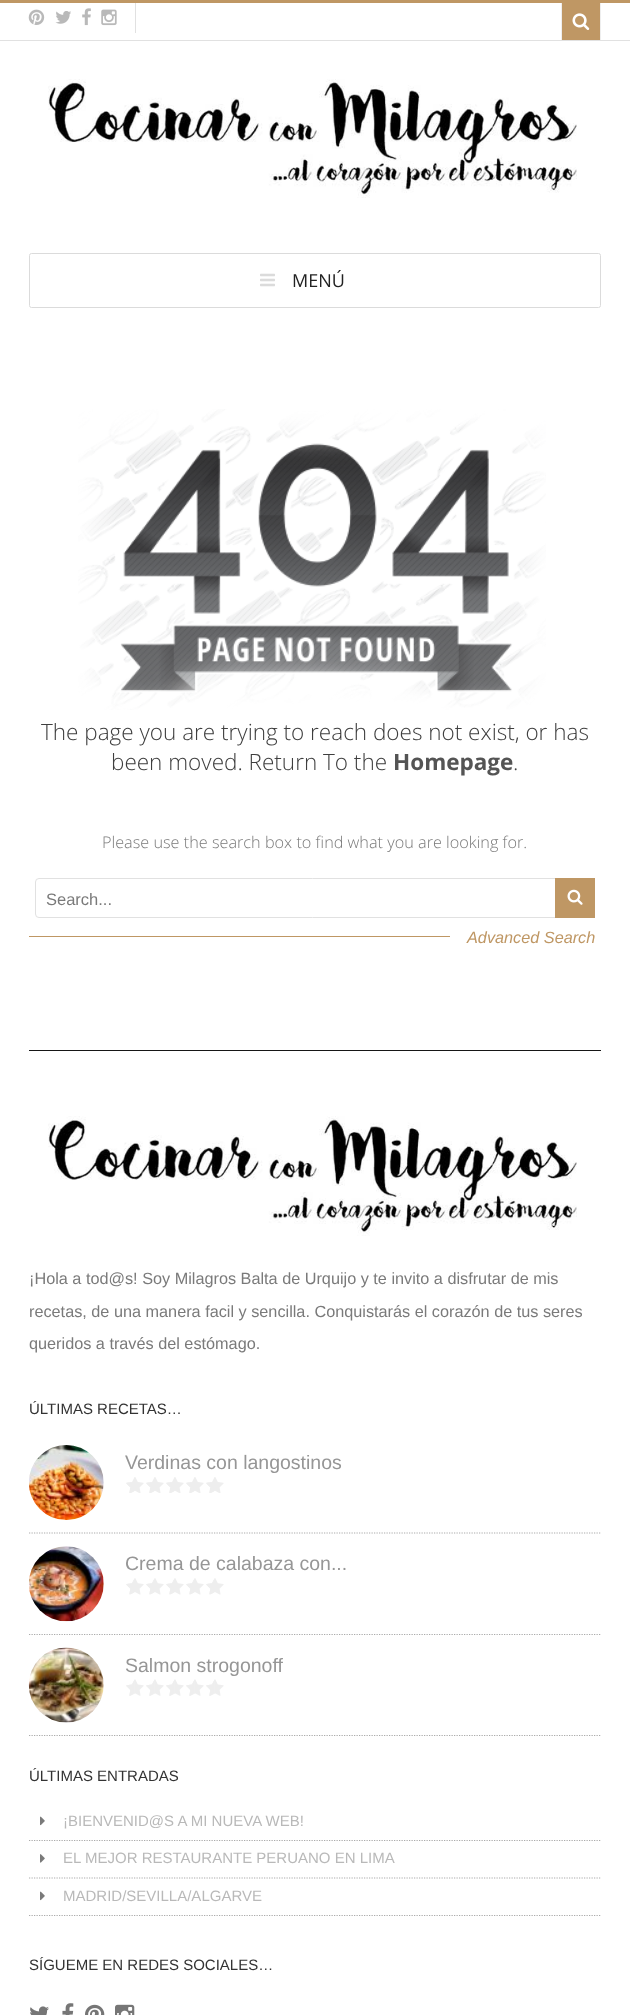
(async () => {
    const canvas = document.querySelector("canvas");
    canvas.width = 630;
    canvas.height = 2015;
    const context = canvas.getContext("2d");
    context.miterLimit = 4;
    context.fontKerning = "normal";
    function write(s, x, y, font, color) {
        context.font = font;
        context.fillStyle = color;
        context.fillText(s, x, y);
    }
    function block(x, y, w, h, color) {
        context.fillStyle = color;
        context.fillRect(x, y, w, h);
    }
    async function photo(src, x, y, w, h) {
        const img = new Image();
        img.src = src;
        await img.decode();
        context.drawImage(img, x, y, w, h);
    }

    block(0, 0, 630, 2015, "rgb(255, 255, 255)");
    block(0, 0, 630, 3, "rgb(191, 151, 100)");
    block(0, 40, 630, 1, "rgb(225, 225, 225)");
    block(135, 3, 1, 30, "rgb(225, 225, 225)");
    await photo("media/1.png", 28, 9, 17, 16);
    await photo("media/2.png", 55, 11, 16, 13);
    await photo("media/3.png", 82, 8, 9, 18);
    await photo("media/4.png", 101, 9, 16, 17);
    block(562, 3, 38, 37, "rgb(191, 151, 100)");
    block(600, 3, 1, 37, "rgb(238, 238, 238)");
    block(561, 3, 1, 37, "rgb(238, 238, 238)");
    await photo("media/5.png", 572, 13, 18, 17);
    await photo("media/6.png", 48, 79, 529, 119);
    context.beginPath();
    context.roundRect(29.5, 253.5, 571, 54, 2);
    context.strokeStyle = "rgb(219, 219, 219)";
    context.stroke();
    await photo("media/7.png", 260, 273, 15, 14);
    write("MENÚ", 292, 287, "18px Open Sans", "rgb(34, 34, 34)");
    await photo("media/8.png", 78, 409, 468, 301);
    write("The page you are trying to reach does not exist, or has", 41, 740, "300 22.5px Open Sans", "rgb(62, 62, 62)");
    write("been moved. Return To the", 111, 770, "300 22.5px Open Sans", "rgb(62, 62, 62)");
    write("Homepage", 393, 770, "bold 22.5px Open Sans", "rgb(84, 84, 84)");
    write(".", 513, 770, "300 22.5px Open Sans", "rgb(62, 62, 62)");
    write("Please use the search box to find what you are looking for.", 102, 848, "300 16.25px Open Sans", "rgb(122, 122, 122)");
    context.beginPath();
    context.roundRect(35.5, 878.5, 554, 39, 3.5);
    context.strokeStyle = "rgb(225, 225, 225)";
    context.stroke();
    write("Search...", 46, 905, "16.5px Liberation Sans", "rgb(122, 122, 122)");
    block(555, 878, 40, 40, "rgb(191, 151, 100)");
    await photo("media/9.png", 567, 889, 16, 16);
    block(29, 936, 421, 1, "rgb(191, 151, 100)");
    write("Advanced Search", 467, 943, "italic 16.25px Liberation Sans", "rgb(191, 151, 100)");
    block(29, 1050, 572, 1, "rgb(22, 22, 22)");
    await photo("media/10.png", 48, 1116, 529, 120);
    write("¡Hola a tod@s! Soy Milagros Balta de Urquijo y te invito a disfrutar de mis", 29, 1284, "16.25px Liberation Sans", "rgb(122, 122, 122)");
    write("recetas, de una manera facil y sencilla. Conquistarás el corazón de tus seres", 29, 1317, "16.25px Liberation Sans", "rgb(122, 122, 122)");
    write("queridos a través del estómago.", 29, 1349, "16.25px Liberation Sans", "rgb(122, 122, 122)");
    write("ÚLTIMAS RECETAS…", 29, 1414, "15px Liberation Sans", "rgb(51, 51, 51)");
    context.beginPath();
    context.moveTo(29, 1533);
    context.lineTo(601, 1533);
    context.strokeStyle = "rgb(171, 171, 171)";
    context.lineWidth = 1.2;
    context.setLineDash([1.25, 1.25]);
    context.stroke();
    await photo("media/11.png", 29, 1445, 75, 75);
    write("Verdinas con langostinos", 125, 1469, "19.5px Liberation Sans", "rgb(150, 150, 150)");
    await photo("media/12.png", 126, 1477, 18, 16);
    await photo("media/12.png", 146, 1477, 18, 16);
    await photo("media/12.png", 166, 1477, 18, 16);
    await photo("media/12.png", 186, 1477, 18, 16);
    await photo("media/12.png", 206, 1477, 18, 16);
    await photo("media/13.png", 126, 1482, 8, 11);
    await photo("media/13.png", 146, 1482, 8, 11);
    await photo("media/13.png", 166, 1482, 8, 11);
    await photo("media/13.png", 186, 1482, 8, 11);
    await photo("media/13.png", 206, 1482, 8, 11);
    context.beginPath();
    context.moveTo(29, 1634.5);
    context.lineTo(601, 1634.5);
    context.stroke();
    await photo("media/14.png", 29, 1546, 75, 76);
    write("Crema de calabaza con...", 125, 1570, "19.5px Liberation Sans", "rgb(150, 150, 150)");
    await photo("media/15.png", 126, 1578, 18, 17);
    await photo("media/15.png", 146, 1578, 18, 17);
    await photo("media/15.png", 166, 1578, 18, 17);
    await photo("media/15.png", 186, 1578, 18, 17);
    await photo("media/15.png", 206, 1578, 18, 17);
    await photo("media/16.png", 126, 1580, 8, 14);
    await photo("media/16.png", 146, 1580, 8, 14);
    await photo("media/16.png", 166, 1580, 8, 14);
    await photo("media/16.png", 186, 1580, 8, 14);
    await photo("media/16.png", 206, 1580, 8, 14);
    context.beginPath();
    context.moveTo(29, 1735.5);
    context.lineTo(601, 1735.5);
    context.stroke();
    await photo("media/17.png", 28, 1647, 76, 76);
    write("Salmon strogonoff", 125, 1672, "19.5px Liberation Sans", "rgb(150, 150, 150)");
    await photo("media/18.png", 126, 1679, 18, 17);
    await photo("media/18.png", 146, 1679, 18, 17);
    await photo("media/18.png", 166, 1679, 18, 17);
    await photo("media/18.png", 186, 1679, 18, 17);
    await photo("media/18.png", 206, 1679, 18, 17);
    await photo("media/19.png", 126, 1681, 9, 15);
    await photo("media/19.png", 146, 1681, 9, 15);
    await photo("media/19.png", 166, 1681, 9, 15);
    await photo("media/19.png", 186, 1681, 9, 15);
    await photo("media/19.png", 206, 1681, 9, 15);
    write("ÚLTIMAS ENTRADAS", 29, 1781, "15px Liberation Sans", "rgb(51, 51, 51)");
    context.beginPath();
    context.moveTo(29, 1840.5);
    context.lineTo(601, 1840.5);
    context.stroke();
    await photo("media/20.png", 40, 1816, 5, 10);
    write("¡BIENVENID@S A MI NUEVA WEB!", 63, 1826, "15px Liberation Sans", "rgb(185, 185, 185)");
    context.beginPath();
    context.moveTo(29, 1878);
    context.lineTo(601, 1878);
    context.stroke();
    await photo("media/21.png", 40, 1854, 5, 9);
    write("EL MEJOR RESTAURANTE PERUANO EN LIMA", 63, 1863, "15px Liberation Sans", "rgb(185, 185, 185)");
    context.beginPath();
    context.moveTo(29, 1915.5);
    context.lineTo(601, 1915.5);
    context.stroke();
    await photo("media/20.png", 40, 1891, 5, 10);
    write("MADRID/SEVILLA/ALGARVE", 63, 1901, "15px Liberation Sans", "rgb(185, 185, 185)");
    write("SÍGUEME EN REDES SOCIALES…", 29, 1970, "15px Liberation Sans", "rgb(51, 51, 51)");
    await photo("media/22.png", 30, 2006, 19, 9);
    await photo("media/23.png", 62, 2003, 12, 12);
    await photo("media/24.png", 85, 2004, 20, 11);
    await photo("media/25.png", 115, 2004, 20, 11);
})();
